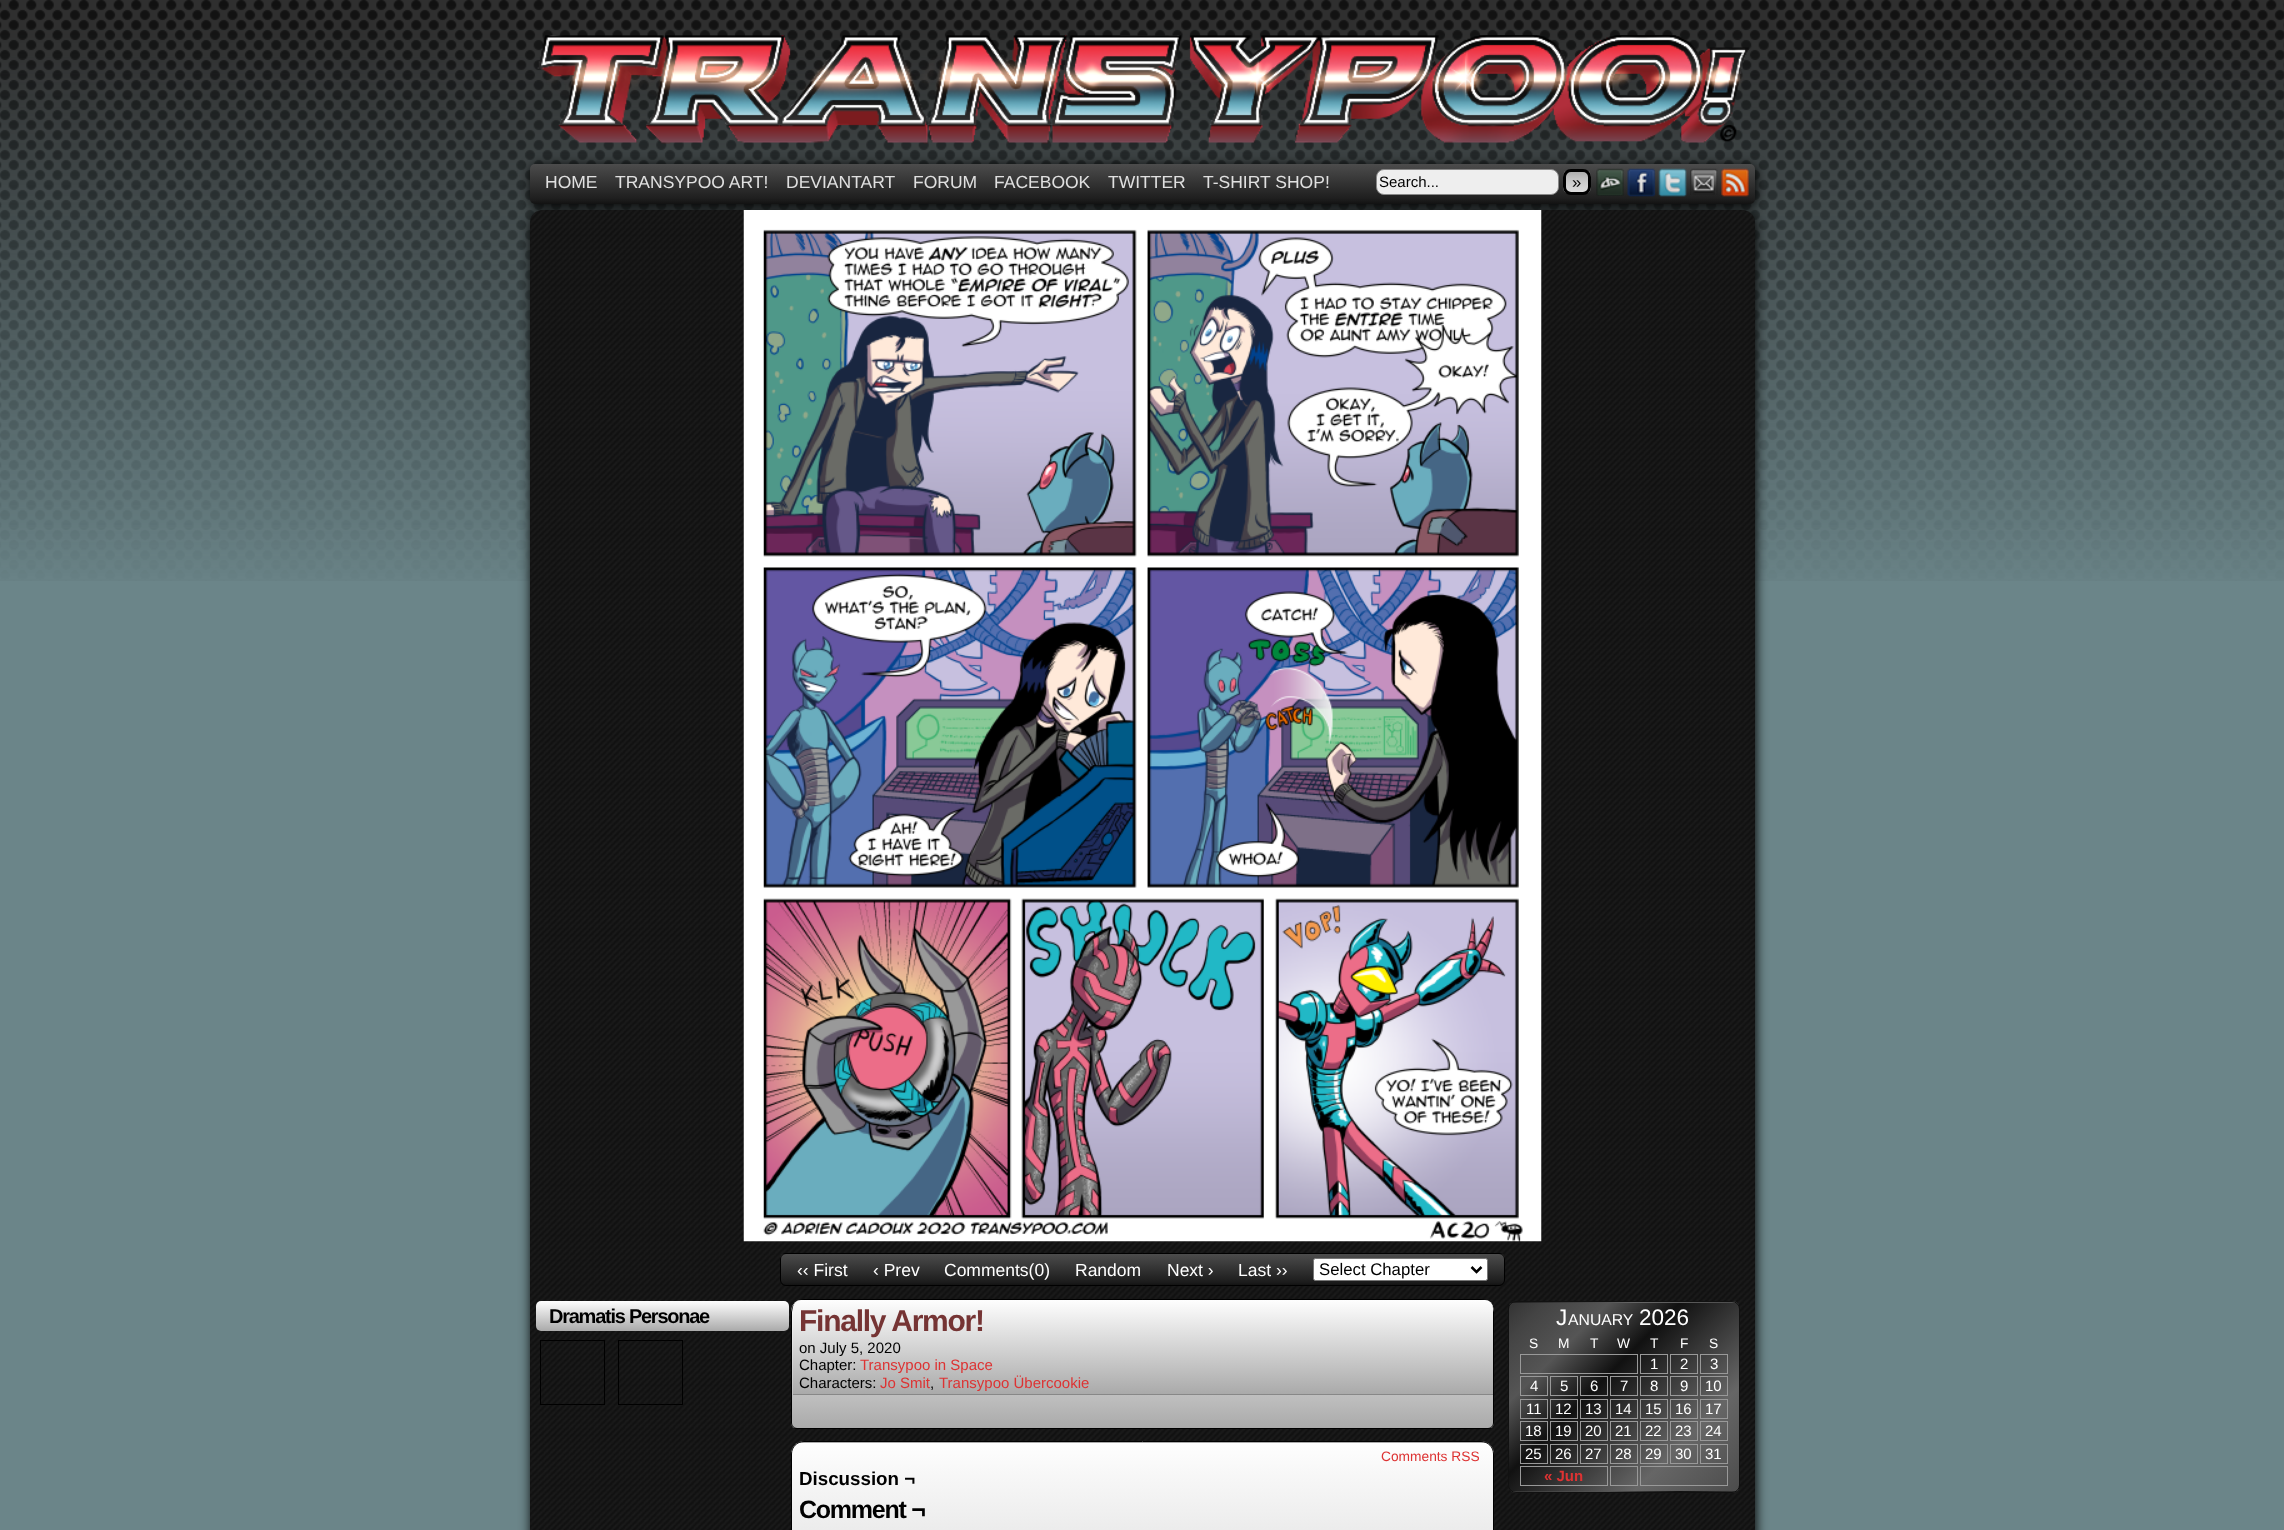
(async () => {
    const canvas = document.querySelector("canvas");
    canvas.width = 2284;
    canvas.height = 1530;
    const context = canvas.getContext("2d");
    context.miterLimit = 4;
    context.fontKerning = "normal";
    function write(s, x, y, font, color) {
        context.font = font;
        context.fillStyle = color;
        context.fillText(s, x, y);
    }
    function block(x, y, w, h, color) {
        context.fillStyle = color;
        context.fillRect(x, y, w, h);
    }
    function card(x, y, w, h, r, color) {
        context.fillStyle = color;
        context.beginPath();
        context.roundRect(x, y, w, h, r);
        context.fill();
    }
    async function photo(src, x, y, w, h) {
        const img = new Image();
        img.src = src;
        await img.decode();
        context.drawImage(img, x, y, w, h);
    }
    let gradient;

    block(0, 0, 2284, 1530, "rgb(107, 133, 137)");
    await photo("media/1.png", 0, 0, 2284, 581);
    await photo("media/2.png", 537, 35, 1212, 109);
    context.fillStyle = "rgb(0, 0, 0)";
    context.filter = "blur(6px)";
    context.beginPath();
    context.roundRect(531, 166, 1225, 40, 5);
    context.fill();
    context.filter = "none";
    gradient = context.createLinearGradient(1143, 164, 1143, 204);
    gradient.addColorStop(0, "rgb(76, 76, 76)");
    gradient.addColorStop(0.91, "rgb(28, 28, 28)");
    gradient.addColorStop(1, "rgb(19, 19, 19)");
    context.fillStyle = gradient;
    context.beginPath();
    context.roundRect(530, 164, 1225, 40, 5);
    context.fill();
    write("HOME", 545, 188, "17.5px Liberation Sans", "rgb(224, 224, 224)");
    write("TRANSYPOO ART!", 615, 188, "17.5px Liberation Sans", "rgb(224, 224, 224)");
    write("DEVIANTART", 786, 188, "17.5px Liberation Sans", "rgb(224, 224, 224)");
    write("FORUM", 913, 188, "17.5px Liberation Sans", "rgb(224, 224, 224)");
    write("FACEBOOK", 994, 188, "17.5px Liberation Sans", "rgb(224, 224, 224)");
    write("TWITTER", 1108, 188, "17.5px Liberation Sans", "rgb(224, 224, 224)");
    write("T-SHIRT SHOP!", 1203, 188, "17.5px Liberation Sans", "rgb(224, 224, 224)");
    context.fillStyle = "rgb(0, 0, 0)";
    context.filter = "blur(6px)";
    context.beginPath();
    context.roundRect(531, 213, 1225, 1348, 13);
    context.fill();
    context.filter = "none";
    context.fillStyle = "rgb(238, 238, 238)";
    context.beginPath();
    context.roundRect(1376.5, 169.5, 182, 25, 7.5);
    context.fill();
    context.strokeStyle = "rgb(136, 136, 136)";
    context.stroke();
    write("Search...", 1379, 187, "15px Liberation Sans", "rgb(0, 0, 0)");
    context.save();
    context.beginPath();
    context.roundRect(1563, 169, 28, 26, 8);
    context.clip();
    gradient = context.createLinearGradient(1577, 171, 1577, 193);
    gradient.addColorStop(0, "rgb(170, 170, 170)");
    gradient.addColorStop(0.5, "rgb(204, 204, 204)");
    gradient.addColorStop(1, "rgb(221, 221, 221)");
    context.fillStyle = gradient;
    context.fillRect(1563, 171, 28, 22);
    context.restore();
    context.beginPath();
    context.roundRect(1564.5, 170.5, 25, 23, 6.5);
    context.strokeStyle = "rgb(0, 0, 0)";
    context.lineWidth = 3;
    context.stroke();
    write("»", 1572, 188, "16.75px Liberation Sans", "rgb(0, 0, 0)");
    await photo("media/3.png", 1596, 168, 28, 28);
    await photo("media/4.png", 1627, 168, 29, 29);
    await photo("media/5.png", 1658, 168, 29, 29);
    await photo("media/6.png", 1690, 168, 28, 27);
    await photo("media/7.png", 1721, 168, 28, 29);
    card(530, 210, 1225, 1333, 13, "rgb(17, 17, 17)");
    await photo("media/8.png", 530, 210, 1225, 1320);
    await photo("media/9.png", 743, 210, 799, 1032);
    context.save();
    context.beginPath();
    context.roundRect(780, 1253, 725, 33, 6);
    context.clip();
    gradient = context.createLinearGradient(1143, 1254, 1143, 1285);
    gradient.addColorStop(0, "rgb(76, 76, 76)");
    gradient.addColorStop(0.91, "rgb(28, 28, 28)");
    gradient.addColorStop(1, "rgb(19, 19, 19)");
    context.fillStyle = gradient;
    context.fillRect(780, 1254, 725, 31);
    context.restore();
    context.beginPath();
    context.roundRect(780.5, 1253.5, 724, 32, 5.5);
    context.lineWidth = 1;
    context.stroke();
    write("‹‹ First", 797, 1276, "17.5px Liberation Sans", "rgb(255, 255, 255)");
    write("‹ Prev", 873, 1276, "17.5px Liberation Sans", "rgb(255, 255, 255)");
    write("Comments(0)", 944, 1276, "17.5px Liberation Sans", "rgb(255, 255, 255)");
    write("Random", 1075, 1276, "17.5px Liberation Sans", "rgb(255, 255, 255)");
    write("Next ›", 1167, 1276, "17.5px Liberation Sans", "rgb(255, 255, 255)");
    write("Last ››", 1238, 1276, "17.5px Liberation Sans", "rgb(255, 255, 255)");
    context.beginPath();
    context.roundRect(1313.5, 1258.5, 174, 22, 2);
    context.fill();
    context.strokeStyle = "rgb(118, 118, 118)";
    context.stroke();
    context.beginPath();
    context.moveTo(1471.5, 1267);
    context.lineTo(1476.5, 1272);
    context.lineTo(1481.5, 1267);
    context.strokeStyle = "rgb(0, 0, 0)";
    context.lineWidth = 2.5;
    context.stroke();
    write("Select Chapter", 1319, 1275, "16.75px Liberation Sans", "rgb(0, 0, 0)");
    gradient = context.createLinearGradient(663, 1301, 663, 1331);
    gradient.addColorStop(0, "rgb(254, 254, 254)");
    gradient.addColorStop(1, "rgb(170, 170, 170)");
    context.fillStyle = gradient;
    context.beginPath();
    context.roundRect(536, 1301, 253, 30, 5);
    context.fill();
    context.letterSpacing = "-1.25px";
    write("Dramatis Personae", 549, 1323, "bold 20px Liberation Sans", "rgb(0, 0, 0)");
    context.lineWidth = 1;
    context.strokeRect(540.5, 1340.5, 64, 64);
    context.strokeRect(618.5, 1340.5, 64, 64);
    context.save();
    context.beginPath();
    context.roundRect(791, 1299, 703, 130, [13, 13, 6, 6]);
    context.clip();
    gradient = context.createLinearGradient(1143, 1300, 1143, 1428);
    gradient.addColorStop(0, "rgb(254, 254, 254)");
    gradient.addColorStop(1, "rgb(170, 170, 170)");
    context.fillStyle = gradient;
    context.fillRect(791, 1300, 703, 128);
    context.restore();
    context.beginPath();
    context.roundRect(791.5, 1299.5, 702, 129, [12.5, 12.5, 5.5, 5.5]);
    context.stroke();
    gradient = context.createLinearGradient(1143, 1300, 1143, 1394);
    gradient.addColorStop(0, "rgb(254, 254, 254)");
    gradient.addColorStop(1, "rgb(170, 170, 170)");
    context.fillStyle = gradient;
    context.beginPath();
    context.roundRect(793, 1300, 700, 94, [8, 8, 0, 0]);
    context.fill();
    block(793, 1394, 700, 1, "rgb(136, 136, 136)");
    write("Finally Armor!", 799, 1331, "bold 30px Liberation Sans", "rgb(117, 52, 52)");
    context.letterSpacing = "0px";
    write("on July 5, 2020", 799, 1353, "15px Liberation Sans", "rgb(0, 0, 0)");
    write("Chapter:", 799, 1370, "15px Liberation Sans", "rgb(0, 0, 0)");
    write("Transypoo in Space", 860, 1370, "15px Liberation Sans", "rgb(221, 51, 51)");
    write("Characters:", 799, 1388, "15px Liberation Sans", "rgb(0, 0, 0)");
    write("Jo Smit", 880, 1388, "15px Liberation Sans", "rgb(221, 51, 51)");
    write(",", 930, 1388, "15px Liberation Sans", "rgb(0, 0, 0)");
    write("Transypoo Übercookie", 939, 1388, "15px Liberation Sans", "rgb(221, 51, 51)");
    context.save();
    context.beginPath();
    context.moveTo(804, 1441);
    context.lineTo(1481, 1441);
    context.bezierCurveTo(1488, 1441, 1494, 1447, 1494, 1454);
    context.lineTo(1494, 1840);
    context.bezierCurveTo(1494, 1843.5, 1491.5, 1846, 1488, 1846);
    context.lineTo(797, 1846);
    context.bezierCurveTo(793.5, 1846, 791, 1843.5, 791, 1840);
    context.lineTo(791, 1454);
    context.bezierCurveTo(791, 1447, 797, 1441, 804, 1441);
    context.closePath();
    context.clip();
    gradient = context.createLinearGradient(1143, 1040, 1143, 1443);
    gradient.addColorStop(0, "rgb(254, 254, 254)");
    gradient.addColorStop(1, "rgb(170, 170, 170)");
    context.fillStyle = gradient;
    context.fillRect(791, 1441, 703, 2);
    gradient = context.createLinearGradient(1143, 1443, 1143, 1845);
    gradient.addColorStop(0, "rgb(254, 254, 254)");
    gradient.addColorStop(1, "rgb(170, 170, 170)");
    context.fillStyle = gradient;
    context.fillRect(791, 1443, 703, 87);
    context.restore();
    context.beginPath();
    context.moveTo(804, 1441.5);
    context.lineTo(1481, 1441.5);
    context.bezierCurveTo(1488, 1441.5, 1493.5, 1447, 1493.5, 1454);
    context.lineTo(1493.5, 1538);
    context.bezierCurveTo(1493.5, 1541, 1491, 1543.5, 1488, 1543.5);
    context.lineTo(797, 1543.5);
    context.bezierCurveTo(794, 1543.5, 791.5, 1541, 791.5, 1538);
    context.lineTo(791.5, 1454);
    context.bezierCurveTo(791.5, 1447, 797, 1441.5, 804, 1441.5);
    context.closePath();
    context.stroke();
    write("Comments RSS", 1381, 1461, "13.75px Liberation Sans", "rgb(221, 51, 51)");
    write("Discussion ¬", 799, 1485, "bold 18.75px Liberation Sans", "rgb(0, 0, 0)");
    context.letterSpacing = "-1.25px";
    write("Comment ¬", 799, 1518, "bold 25px Liberation Sans", "rgb(0, 0, 0)");
    context.save();
    context.beginPath();
    context.roundRect(1508, 1301, 232, 192, 8);
    context.clip();
    gradient = context.createLinearGradient(1519, 1103, 1728, 1313);
    gradient.addColorStop(0, "rgb(51, 51, 51)");
    gradient.addColorStop(0.09, "rgb(68, 68, 68)");
    gradient.addColorStop(0.24, "rgb(85, 85, 85)");
    gradient.addColorStop(0.41, "rgb(17, 17, 17)");
    gradient.addColorStop(0.75, "rgb(102, 102, 102)");
    gradient.addColorStop(0.88, "rgb(89, 89, 89)");
    gradient.addColorStop(1, "rgb(76, 76, 76)");
    context.fillStyle = gradient;
    context.fillRect(1509, 1301, 230, 2);
    gradient = context.createLinearGradient(1519, 1292, 1728, 1502);
    gradient.addColorStop(0, "rgb(51, 51, 51)");
    gradient.addColorStop(0.09, "rgb(68, 68, 68)");
    gradient.addColorStop(0.24, "rgb(85, 85, 85)");
    gradient.addColorStop(0.41, "rgb(17, 17, 17)");
    gradient.addColorStop(0.75, "rgb(102, 102, 102)");
    gradient.addColorStop(0.88, "rgb(89, 89, 89)");
    gradient.addColorStop(1, "rgb(76, 76, 76)");
    context.fillStyle = gradient;
    context.fillRect(1509, 1303, 230, 188);
    gradient = context.createLinearGradient(1519, 1481, 1728, 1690);
    gradient.addColorStop(0, "rgb(51, 51, 51)");
    gradient.addColorStop(0.09, "rgb(68, 68, 68)");
    gradient.addColorStop(0.24, "rgb(85, 85, 85)");
    gradient.addColorStop(0.41, "rgb(17, 17, 17)");
    gradient.addColorStop(0.75, "rgb(102, 102, 102)");
    gradient.addColorStop(0.88, "rgb(89, 89, 89)");
    gradient.addColorStop(1, "rgb(76, 76, 76)");
    context.fillStyle = gradient;
    context.fillRect(1509, 1491, 230, 2);
    context.restore();
    context.beginPath();
    context.roundRect(1508.5, 1301.5, 231, 191, 7.5);
    context.strokeStyle = "rgb(17, 17, 17)";
    context.stroke();
    context.letterSpacing = "0px";
    write("J", 1556, 1325, "22.5px Liberation Sans", "rgb(255, 255, 255)");
    write("ANUARY", 1568, 1325, "15.75px Liberation Sans", "rgb(255, 255, 255)");
    write("2026", 1639, 1325, "22.5px Liberation Sans", "rgb(255, 255, 255)");
    write("S", 1529, 1348, "13.75px Liberation Sans", "rgb(255, 255, 255)");
    write("M", 1558, 1348, "13.75px Liberation Sans", "rgb(255, 255, 255)");
    write("T", 1590, 1348, "13.75px Liberation Sans", "rgb(255, 255, 255)");
    write("W", 1617, 1348, "13.75px Liberation Sans", "rgb(255, 255, 255)");
    write("T", 1650, 1348, "13.75px Liberation Sans", "rgb(255, 255, 255)");
    write("F", 1680, 1348, "13.75px Liberation Sans", "rgb(255, 255, 255)");
    write("S", 1709, 1348, "13.75px Liberation Sans", "rgb(255, 255, 255)");
    context.strokeStyle = "rgb(153, 153, 153)";
    context.strokeRect(1520.5, 1354.5, 117, 19);
    context.strokeRect(1640.5, 1354.5, 27, 19);
    write("1", 1650, 1369, "15px Liberation Sans", "rgb(255, 255, 255)");
    context.strokeRect(1670.5, 1354.5, 27, 19);
    write("2", 1680, 1369, "15px Liberation Sans", "rgb(255, 255, 255)");
    context.strokeRect(1700.5, 1354.5, 27, 19);
    write("3", 1710, 1369, "15px Liberation Sans", "rgb(255, 255, 255)");
    context.strokeRect(1520.5, 1376.5, 27, 19);
    write("4", 1530, 1391, "15px Liberation Sans", "rgb(255, 255, 255)");
    context.strokeRect(1550.5, 1376.5, 27, 19);
    write("5", 1560, 1391, "15px Liberation Sans", "rgb(255, 255, 255)");
    context.strokeRect(1580.5, 1376.5, 27, 19);
    write("6", 1590, 1391, "15px Liberation Sans", "rgb(255, 255, 255)");
    context.strokeRect(1610.5, 1376.5, 27, 19);
    write("7", 1620, 1391, "15px Liberation Sans", "rgb(255, 255, 255)");
    context.strokeRect(1640.5, 1376.5, 27, 19);
    write("8", 1650, 1391, "15px Liberation Sans", "rgb(255, 255, 255)");
    context.strokeRect(1670.5, 1376.5, 27, 19);
    write("9", 1680, 1391, "15px Liberation Sans", "rgb(255, 255, 255)");
    context.strokeRect(1700.5, 1376.5, 27, 19);
    write("10", 1705, 1391, "15px Liberation Sans", "rgb(255, 255, 255)");
    context.strokeRect(1520.5, 1399.5, 27, 19);
    write("11", 1526, 1414, "15px Liberation Sans", "rgb(255, 255, 255)");
    context.strokeRect(1550.5, 1399.5, 27, 19);
    write("12", 1555, 1414, "15px Liberation Sans", "rgb(255, 255, 255)");
    context.strokeRect(1580.5, 1399.5, 27, 19);
    write("13", 1585, 1414, "15px Liberation Sans", "rgb(255, 255, 255)");
    context.strokeRect(1610.5, 1399.5, 27, 19);
    write("14", 1615, 1414, "15px Liberation Sans", "rgb(255, 255, 255)");
    context.strokeRect(1640.5, 1399.5, 27, 19);
    write("15", 1645, 1414, "15px Liberation Sans", "rgb(255, 255, 255)");
    context.strokeRect(1670.5, 1399.5, 27, 19);
    write("16", 1675, 1414, "15px Liberation Sans", "rgb(255, 255, 255)");
    context.strokeRect(1700.5, 1399.5, 27, 19);
    write("17", 1705, 1414, "15px Liberation Sans", "rgb(255, 255, 255)");
    context.strokeRect(1520.5, 1421.5, 27, 19);
    write("18", 1525, 1436, "15px Liberation Sans", "rgb(255, 255, 255)");
    context.strokeRect(1550.5, 1421.5, 27, 19);
    write("19", 1555, 1436, "15px Liberation Sans", "rgb(255, 255, 255)");
    context.strokeRect(1580.5, 1421.5, 27, 19);
    write("20", 1585, 1436, "15px Liberation Sans", "rgb(255, 255, 255)");
    context.strokeRect(1610.5, 1421.5, 27, 19);
    write("21", 1615, 1436, "15px Liberation Sans", "rgb(255, 255, 255)");
    context.strokeRect(1640.5, 1421.5, 27, 19);
    write("22", 1645, 1436, "15px Liberation Sans", "rgb(255, 255, 255)");
    context.strokeRect(1670.5, 1421.5, 27, 19);
    write("23", 1675, 1436, "15px Liberation Sans", "rgb(255, 255, 255)");
    context.strokeRect(1700.5, 1421.5, 27, 19);
    write("24", 1705, 1436, "15px Liberation Sans", "rgb(255, 255, 255)");
    context.strokeRect(1520.5, 1444.5, 27, 19);
    write("25", 1525, 1459, "15px Liberation Sans", "rgb(255, 255, 255)");
    context.strokeRect(1550.5, 1444.5, 27, 19);
    write("26", 1555, 1459, "15px Liberation Sans", "rgb(255, 255, 255)");
    context.strokeRect(1580.5, 1444.5, 27, 19);
    write("27", 1585, 1459, "15px Liberation Sans", "rgb(255, 255, 255)");
    context.strokeRect(1610.5, 1444.5, 27, 19);
    write("28", 1615, 1459, "15px Liberation Sans", "rgb(255, 255, 255)");
    context.strokeRect(1640.5, 1444.5, 27, 19);
    write("29", 1645, 1459, "15px Liberation Sans", "rgb(255, 255, 255)");
    context.strokeRect(1670.5, 1444.5, 27, 19);
    write("30", 1675, 1459, "15px Liberation Sans", "rgb(255, 255, 255)");
    context.strokeRect(1700.5, 1444.5, 27, 19);
    write("31", 1705, 1459, "15px Liberation Sans", "rgb(255, 255, 255)");
    context.strokeRect(1520.5, 1466.5, 87, 19);
    write("« Jun", 1544, 1481, "bold 15px Liberation Sans", "rgb(221, 51, 51)");
    context.strokeRect(1610.5, 1466.5, 27, 19);
    context.strokeRect(1640.5, 1466.5, 87, 19);
})();
